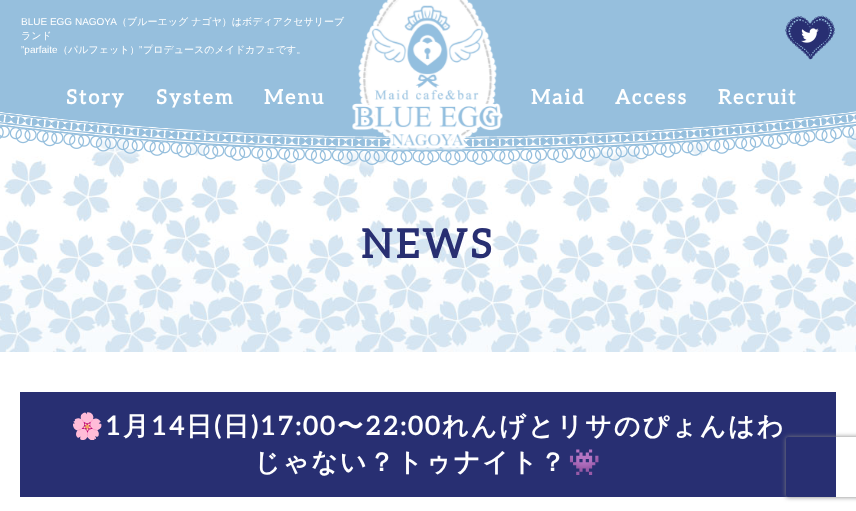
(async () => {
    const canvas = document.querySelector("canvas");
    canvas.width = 856;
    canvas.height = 511;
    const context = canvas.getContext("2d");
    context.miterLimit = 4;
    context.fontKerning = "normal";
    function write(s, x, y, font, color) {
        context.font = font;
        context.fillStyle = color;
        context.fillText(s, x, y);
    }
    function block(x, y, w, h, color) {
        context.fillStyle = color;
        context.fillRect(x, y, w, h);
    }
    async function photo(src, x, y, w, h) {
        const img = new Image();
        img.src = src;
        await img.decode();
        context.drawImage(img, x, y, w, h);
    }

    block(0, 0, 856, 511, "rgb(255, 255, 255)");
    await photo("media/1.png", 0, 111, 856, 241);
    await photo("media/2.png", 0, 0, 856, 169);
    write("BLUE EGG NAGOYA", 21, 25, "10px Liberation Sans", "rgb(255, 255, 255)");
    write("（ブルーエッグ ナゴヤ）はボディアクセサリーブ", 117, 25, "500 10px WenQuanYi Zen Hei", "rgb(255, 255, 255)");
    write("ランド", 21, 39, "500 10px WenQuanYi Zen Hei", "rgb(255, 255, 255)");
    write("”parfaite", 21, 53, "10px Liberation Sans", "rgb(255, 255, 255)");
    write("（パルフェット）", 58, 53, "500 10px WenQuanYi Zen Hei", "rgb(255, 255, 255)");
    write("”", 139, 53, "10px Liberation Sans", "rgb(255, 255, 255)");
    write("プロデュースのメイドカフェです。", 143, 53, "500 10px WenQuanYi Zen Hei", "rgb(255, 255, 255)");
    await photo("media/3.png", 352, 0, 151, 149);
    await photo("media/4.png", 785, 15, 50, 45);
    context.letterSpacing = "2px";
    write("Story", 66, 104, "bold 20px Aleo", "rgb(255, 255, 255)");
    write("System", 156, 104, "bold 20px Aleo", "rgb(255, 255, 255)");
    write("Menu", 264, 104, "bold 20px Aleo", "rgb(255, 255, 255)");
    write("Maid", 531, 104, "bold 20px Aleo", "rgb(255, 255, 255)");
    write("Access", 615, 104, "bold 20px Aleo", "rgb(255, 255, 255)");
    write("Recruit", 718, 104, "bold 20px Aleo", "rgb(255, 255, 255)");
    context.letterSpacing = "3px";
    write("NEWS", 361, 258, "bold 40px Aleo", "rgb(40, 47, 114)");
    block(20, 392, 816, 105, "rgb(40, 47, 114)");
    context.letterSpacing = "2px";
    write("🌸", 71, 435, "bold 26px Noto Color Emoji", "rgb(255, 255, 255)");
    write("1", 105, 435, "bold 26px Aleo", "rgb(255, 255, 255)");
    write("月", 123, 435, "bold 26px WenQuanYi Zen Hei", "rgb(255, 255, 255)");
    write("14", 151, 435, "bold 26px Aleo", "rgb(255, 255, 255)");
    write("日", 186, 435, "bold 26px WenQuanYi Zen Hei", "rgb(255, 255, 255)");
    write("(", 214, 435, "bold 26px Aleo", "rgb(255, 255, 255)");
    write("日", 223, 435, "bold 26px WenQuanYi Zen Hei", "rgb(255, 255, 255)");
    write(")17:00", 251, 435, "bold 26px Aleo", "rgb(255, 255, 255)");
    write("〜", 337, 435, "bold 26px WenQuanYi Zen Hei", "rgb(255, 255, 255)");
    write("22:00", 365, 435, "bold 26px Aleo", "rgb(255, 255, 255)");
    write("れんげとリサのぴょんはわ", 442, 435, "bold 26px WenQuanYi Zen Hei", "rgb(255, 255, 255)");
    write("じゃない？トゥナイト？", 254, 471, "bold 26px WenQuanYi Zen Hei", "rgb(255, 255, 255)");
    write("👾", 568, 471, "bold 26px Noto Color Emoji", "rgb(255, 255, 255)");
    context.save();
    context.beginPath();
    context.moveTo(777, 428);
    context.lineTo(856, 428);
    context.lineTo(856, 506);
    context.lineTo(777, 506);
    context.closePath();
    context.moveTo(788, 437);
    context.lineTo(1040, 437);
    context.bezierCurveTo(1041, 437, 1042, 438, 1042, 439);
    context.lineTo(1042, 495);
    context.bezierCurveTo(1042, 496, 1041, 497, 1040, 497);
    context.lineTo(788, 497);
    context.bezierCurveTo(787, 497, 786, 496, 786, 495);
    context.lineTo(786, 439);
    context.bezierCurveTo(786, 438, 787, 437, 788, 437);
    context.closePath();
    context.clip("evenodd");
    context.fillStyle = "rgb(128, 128, 128)";
    context.filter = "blur(2.5px)";
    context.beginPath();
    context.roundRect(786, 437, 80, 60, 2);
    context.fill();
    context.filter = "none";
    context.restore();
})();
